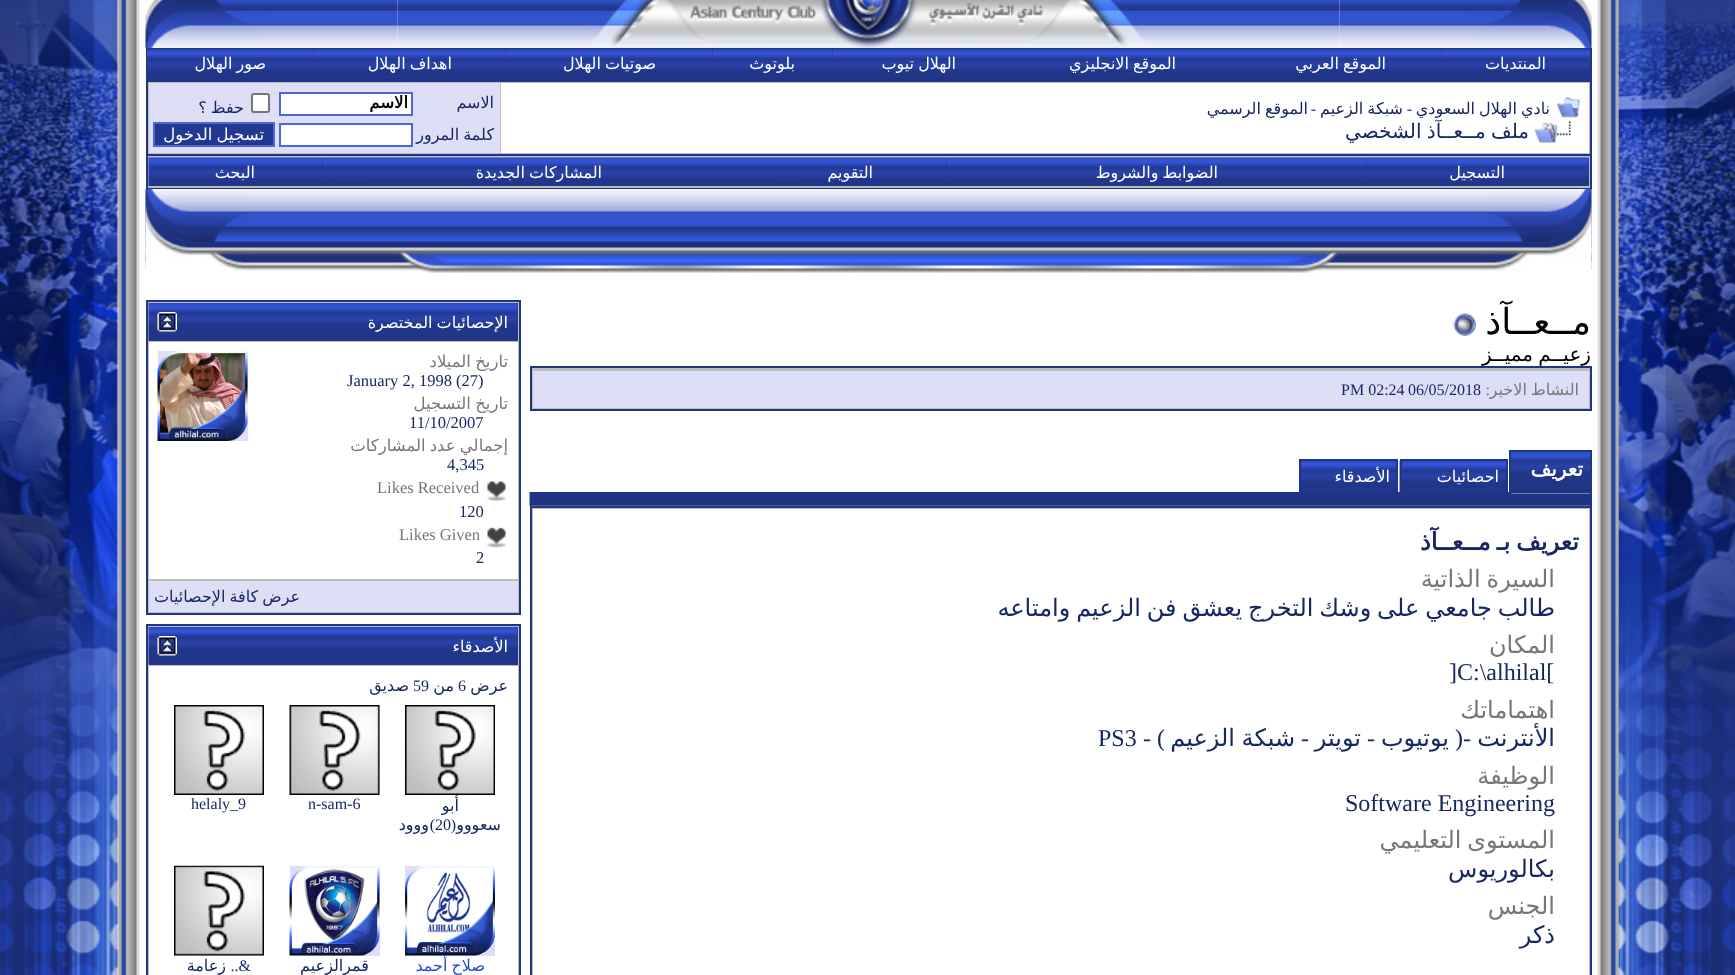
(async () => {
    const canvas = document.querySelector("canvas");
    canvas.width = 1735;
    canvas.height = 975;
    const context = canvas.getContext("2d");
    context.miterLimit = 4;
    context.fontKerning = "normal";
    function write(s, x, y, font, color) {
        context.font = font;
        context.fillStyle = color;
        context.fillText(s, x, y);
    }
    function block(x, y, w, h, color) {
        context.fillStyle = color;
        context.fillRect(x, y, w, h);
    }
    async function photo(src, x, y, w, h) {
        const img = new Image();
        img.src = src;
        await img.decode();
        context.drawImage(img, x, y, w, h);
    }

    block(0, 0, 1735, 975, "rgb(255, 255, 255)");
    await photo("media/1.png", 0, 0, 1735, 975);
    await photo("media/2.png", 118, 0, 1501, 975);
    await photo("media/3.png", 1470, 0, 122, 48);
    await photo("media/4.png", 1339, 0, 131, 48);
    await photo("media/6.png", 267, 0, 131, 48);
    await photo("media/5.png", 397, 0, 943, 48);
    await photo("media/7.png", 145, 0, 122, 48);
    context.strokeStyle = "rgb(32, 53, 133)";
    context.lineWidth = 2;
    context.strokeRect(147, 49, 1444, 30);
    await photo("media/8.png", 1441, 49, 149, 29);
    context.direction = "rtl";
    write("المنتديات", 1546, 69, "16px DejaVu Sans", "rgb(255, 255, 255)");
    block(1441, 50, 1, 28, "rgb(34, 57, 145)");
    await photo("media/9.png", 1239, 49, 203, 29);
    context.wordSpacing = "-1px";
    write("الموقع العربي", 1386, 69, "16px DejaVu Sans", "rgb(255, 255, 255)");
    await photo("media/10.png", 1005, 49, 234, 29);
    write("الموقع الانجليزي", 1176, 69, "16px DejaVu Sans", "rgb(255, 255, 255)");
    await photo("media/11.png", 832, 49, 173, 29);
    write("الهلال تيوب", 956, 69, "16px DejaVu Sans", "rgb(255, 255, 255)");
    block(832, 50, 1, 28, "rgb(34, 57, 145)");
    await photo("media/12.png", 712, 49, 121, 29);
    context.wordSpacing = "0px";
    write("بلوتوث", 795, 69, "16px DejaVu Sans", "rgb(255, 255, 255)");
    block(712, 50, 1, 28, "rgb(34, 57, 145)");
    await photo("media/13.png", 505, 49, 208, 29);
    context.wordSpacing = "-1px";
    write("صوتيات الهلال", 656, 69, "16px DejaVu Sans", "rgb(255, 255, 255)");
    block(505, 50, 1, 28, "rgb(34, 57, 145)");
    await photo("media/14.png", 313, 49, 193, 29);
    write("اهداف الهلال", 452, 69, "16px DejaVu Sans", "rgb(255, 255, 255)");
    block(313, 50, 1, 28, "rgb(34, 57, 145)");
    await photo("media/15.png", 147, 49, 167, 29);
    write("صور الهلال", 266, 69, "16px DejaVu Sans", "rgb(255, 255, 255)");
    context.fillStyle = "rgb(189, 189, 189)";
    context.beginPath();
    context.rect(147, 81, 1444, 74);
    context.fill();
    context.stroke();
    block(501, 83, 1088, 70, "rgb(255, 255, 255)");
    await photo("media/16.png", 1557, 97, 23, 21);
    write("نادي الهلال السعودي", 1550, 114, "16px DejaVu Sans", "rgb(23, 39, 99)");
    context.wordSpacing = "0px";
    write("-", 1412, 114, "16px Liberation Serif", "rgb(23, 39, 99)");
    context.wordSpacing = "-1px";
    write("شبكة الزعيم", 1403, 114, "16px DejaVu Sans", "rgb(23, 39, 99)");
    context.wordSpacing = "0px";
    write("-", 1316, 114, "16px Liberation Serif", "rgb(23, 39, 99)");
    context.wordSpacing = "-1px";
    write("الموقع الرسمي", 1308, 114, "16px DejaVu Sans", "rgb(23, 39, 99)");
    await photo("media/17.png", 1534, 121, 37, 22);
    write("ملف مــعــآذ الشخصي", 1529, 138, "20px DejaVu Sans", "rgb(23, 39, 99)");
    block(149, 83, 351, 70, "rgb(222, 223, 247)");
    context.wordSpacing = "0px";
    write("الاسم", 494, 108, "16px DejaVu Sans", "rgb(23, 39, 99)");
    context.fillStyle = "rgb(255, 255, 255)";
    context.beginPath();
    context.rect(280, 93, 132, 22);
    context.fill();
    context.strokeStyle = "rgb(75, 103, 214)";
    context.stroke();
    write("الاسم", 408, 108, "bold 16.5px DejaVu Sans", "rgb(0, 0, 0)");
    context.fillStyle = "rgb(255, 255, 255)";
    context.beginPath();
    context.roundRect(252, 94, 17, 18, 2);
    context.fill();
    context.strokeStyle = "rgb(118, 118, 118)";
    context.stroke();
    context.wordSpacing = "-1px";
    write("حفظ ؟", 244, 113, "16px DejaVu Sans", "rgb(23, 39, 99)");
    write("كلمة المرور", 494, 140, "16px DejaVu Sans", "rgb(23, 39, 99)");
    context.fillStyle = "rgb(255, 255, 255)";
    context.beginPath();
    context.rect(280, 124, 132, 22);
    context.fill();
    context.strokeStyle = "rgb(75, 103, 214)";
    context.stroke();
    context.fillStyle = "rgb(34, 57, 145)";
    context.beginPath();
    context.rect(154, 123, 120, 23);
    context.fill();
    context.stroke();
    write("تسجيل الدخول", 264, 140, "16.5px DejaVu Sans", "rgb(255, 255, 255)");
    block(148, 156, 1442, 32, "rgb(189, 189, 189)");
    block(1590, 156, 2, 33, "rgb(32, 53, 133)");
    block(146, 188, 1446, 2, "rgb(32, 53, 133)");
    block(146, 156, 2, 33, "rgb(32, 53, 133)");
    block(1588, 158, 1, 28, "rgb(34, 57, 145)");
    await photo("media/18.png", 1366, 157, 223, 29);
    context.wordSpacing = "0px";
    write("التسجيل", 1505, 178, "16px DejaVu Sans", "rgb(255, 255, 255)");
    block(1366, 158, 1, 28, "rgb(34, 57, 145)");
    await photo("media/19.png", 946, 157, 421, 29);
    context.wordSpacing = "-1px";
    write("الضوابط والشروط", 1218, 178, "16px DejaVu Sans", "rgb(255, 255, 255)");
    block(946, 158, 1, 28, "rgb(34, 57, 145)");
    await photo("media/20.png", 756, 157, 191, 29);
    context.wordSpacing = "0px";
    write("التقويم", 873, 178, "16px DejaVu Sans", "rgb(255, 255, 255)");
    await photo("media/21.png", 322, 157, 434, 29);
    context.wordSpacing = "-1px";
    write("المشاركات الجديدة", 602, 178, "16px DejaVu Sans", "rgb(255, 255, 255)");
    block(322, 158, 1, 28, "rgb(34, 57, 145)");
    await photo("media/22.png", 148, 157, 175, 29);
    context.wordSpacing = "0px";
    write("البحث", 255, 178, "16px DejaVu Sans", "rgb(255, 255, 255)");
    await photo("media/23.png", 145, 189, 1447, 82);
    await photo("media/24.png", 1483, 189, 109, 84);
    await photo("media/25.png", 397, 249, 942, 24);
    await photo("media/26.png", 145, 189, 108, 84);
    write("مــعــآذ", 1591, 334, "36px DejaVu Sans", "rgb(0, 0, 0)");
    await photo("media/27.png", 1453, 313, 23, 23);
    context.wordSpacing = "-1px";
    write("زعيــم مميــز", 1591, 361, "20px DejaVu Sans", "rgb(0, 0, 0)");
    context.fillStyle = "rgb(189, 189, 189)";
    context.beginPath();
    context.rect(531, 367, 1060, 43);
    context.fill();
    context.strokeStyle = "rgb(32, 53, 133)";
    context.stroke();
    block(533, 371, 1056, 37, "rgb(222, 223, 247)");
    context.wordSpacing = "0px";
    write(":", 1490, 395, "16px Liberation Serif", "rgb(119, 119, 119)");
    context.wordSpacing = "-1px";
    write("النشاط الاخير", 1579, 395, "16px DejaVu Sans", "rgb(119, 119, 119)");
    context.wordSpacing = "0px";
    context.direction = "ltr";
    write("06/05/2018", 1408, 395, "16px Liberation Serif", "rgb(23, 39, 99)");
    write("PM 02:24", 1341, 395, "16px Liberation Serif", "rgb(23, 39, 99)");
    block(532, 505, 1058, 1, "rgb(134, 155, 191)");
    await photo("media/31.png", 529, 492, 1061, 14);
    block(1511, 493, 79, 1, "rgb(134, 155, 191)");
    await photo("media/28.png", 1511, 452, 79, 42);
    block(1509, 450, 83, 2, "rgb(32, 53, 133)");
    block(1590, 492, 2, 14, "rgb(32, 53, 133)");
    block(1590, 450, 2, 44, "rgb(32, 53, 133)");
    block(1509, 450, 2, 44, "rgb(32, 53, 133)");
    context.direction = "rtl";
    write("تعريف", 1583, 476, "bold 20px DejaVu Sans", "rgb(255, 255, 255)");
    await photo("media/29.png", 1399, 460, 107, 33);
    context.strokeRect(1401, 460, 106, 33);
    write("احصائيات", 1499, 482, "16px DejaVu Sans", "rgb(255, 255, 255)");
    await photo("media/30.png", 1301, 461, 95, 31);
    context.strokeRect(1300, 460, 97, 33);
    write("الأصدقاء", 1390, 482, "16px DejaVu Sans", "rgb(255, 255, 255)");
    block(530, 492, 2, 14, "rgb(32, 53, 133)");
    context.fillStyle = "rgb(189, 189, 189)";
    context.beginPath();
    context.rect(531, 507, 1060, 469);
    context.fill();
    context.stroke();
    block(533, 509, 1056, 466, "rgb(255, 255, 255)");
    context.wordSpacing = "-1.75px";
    write("تعريف بـ مــعــآذ", 1579, 550, "bold 24px DejaVu Sans", "rgb(23, 39, 99)");
    write("السيرة الذاتية", 1555, 587, "24px DejaVu Sans", "rgb(119, 119, 119)");
    write("طالب جامعي على وشك التخرج يعشق فن الزعيم وامتاعه", 1555, 616, "24px DejaVu Sans", "rgb(23, 39, 99)");
    context.wordSpacing = "0px";
    write("المكان", 1555, 653, "24px DejaVu Sans", "rgb(119, 119, 119)");
    context.direction = "ltr";
    write("]C:\\alhilal[", 1449, 680, "24px Liberation Serif", "rgb(23, 39, 99)");
    context.direction = "rtl";
    write("اهتماماتك", 1555, 718, "24px DejaVu Sans", "rgb(119, 119, 119)");
    write("الأنترنت", 1555, 746, "24px DejaVu Sans", "rgb(23, 39, 99)");
    write("-(", 1471, 746, "24px Liberation Serif", "rgb(23, 39, 99)");
    write("يوتيوب", 1449, 746, "24px DejaVu Sans", "rgb(23, 39, 99)");
    write("-", 1375, 746, "24px Liberation Serif", "rgb(23, 39, 99)");
    write("تويتر", 1361, 746, "24px DejaVu Sans", "rgb(23, 39, 99)");
    write("-", 1309, 746, "24px Liberation Serif", "rgb(23, 39, 99)");
    write("شبكة", 1295, 746, "24px DejaVu Sans", "rgb(23, 39, 99)");
    write("الزعيم", 1235, 746, "24px DejaVu Sans", "rgb(23, 39, 99)");
    write(") -", 1165, 746, "24px Liberation Serif", "rgb(23, 39, 99)");
    context.direction = "ltr";
    write("PS3", 1098, 746, "24px Liberation Serif", "rgb(23, 39, 99)");
    context.direction = "rtl";
    write("الوظيفة", 1555, 784, "24px DejaVu Sans", "rgb(119, 119, 119)");
    context.direction = "ltr";
    write("Software Engineering", 1345, 811, "24px Liberation Serif", "rgb(23, 39, 99)");
    context.wordSpacing = "-1.75px";
    context.direction = "rtl";
    write("المستوى التعليمي", 1555, 848, "24px DejaVu Sans", "rgb(119, 119, 119)");
    context.wordSpacing = "0px";
    write("بكالوريوس", 1555, 877, "24px DejaVu Sans", "rgb(23, 39, 99)");
    write("الجنس", 1555, 914, "24px DejaVu Sans", "rgb(119, 119, 119)");
    write("ذكر", 1555, 943, "24px DejaVu Sans", "rgb(23, 39, 99)");
    context.fillStyle = "rgb(189, 189, 189)";
    context.beginPath();
    context.rect(147, 301, 373, 313);
    context.fill();
    context.stroke();
    block(149, 303, 369, 38, "rgb(34, 57, 145)");
    await photo("media/32.png", 148, 303, 370, 38);
    context.wordSpacing = "-1px";
    write("الإحصائيات المختصرة", 508, 328, "16px DejaVu Sans", "rgb(255, 255, 255)");
    await photo("media/33.png", 157, 312, 20, 20);
    block(149, 342, 369, 237, "rgb(255, 255, 255)");
    write("تاريخ الميلاد", 508, 367, "16.5px DejaVu Sans", "rgb(119, 119, 119)");
    context.wordSpacing = "0px";
    context.direction = "ltr";
    write("January 2, 1998 (27)", 347, 386, "16.5px Liberation Serif", "rgb(23, 39, 99)");
    context.wordSpacing = "-1px";
    context.direction = "rtl";
    write("تاريخ التسجيل", 508, 409, "16.5px DejaVu Sans", "rgb(119, 119, 119)");
    context.wordSpacing = "0px";
    context.direction = "ltr";
    write("11/10/2007", 409, 428, "16.5px Liberation Serif", "rgb(23, 39, 99)");
    context.wordSpacing = "-1px";
    context.direction = "rtl";
    write("إجمالي عدد المشاركات", 508, 451, "16.5px DejaVu Sans", "rgb(119, 119, 119)");
    context.wordSpacing = "0px";
    context.direction = "ltr";
    write("4,345", 447, 470, "16.5px Liberation Serif", "rgb(23, 39, 99)");
    await photo("media/34.png", 487, 481, 19, 20);
    write("Likes Received", 377, 493, "16.5px Liberation Serif", "rgb(119, 119, 119)");
    write("120", 459, 517, "16.5px Liberation Serif", "rgb(23, 39, 99)");
    await photo("media/35.png", 487, 527, 19, 21);
    write("Likes Given", 399, 540, "16.5px Liberation Serif", "rgb(119, 119, 119)");
    write("2", 476, 563, "16.5px Liberation Serif", "rgb(23, 39, 99)");
    block(158, 351, 90, 90, "rgb(222, 223, 247)");
    await photo("media/36.png", 157, 351, 91, 90);
    block(149, 581, 369, 31, "rgb(222, 223, 247)");
    context.wordSpacing = "-1px";
    context.direction = "rtl";
    write("عرض كافة الإحصائيات", 300, 602, "16px DejaVu Sans", "rgb(23, 39, 99)");
    context.fillStyle = "rgb(189, 189, 189)";
    context.beginPath();
    context.rect(147, 625, 373, 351);
    context.fill();
    context.stroke();
    block(149, 627, 369, 38, "rgb(34, 57, 145)");
    await photo("media/37.png", 148, 627, 370, 38);
    context.wordSpacing = "0px";
    write("الأصدقاء", 508, 652, "16px DejaVu Sans", "rgb(255, 255, 255)");
    await photo("media/38.png", 157, 636, 20, 20);
    block(149, 666, 369, 309, "rgb(255, 255, 255)");
    write("عرض", 508, 691, "16px DejaVu Sans", "rgb(23, 39, 99)");
    context.direction = "ltr";
    write("6", 458, 691, "16px Liberation Serif", "rgb(23, 39, 99)");
    context.direction = "rtl";
    write("من", 454, 691, "16px DejaVu Sans", "rgb(23, 39, 99)");
    context.direction = "ltr";
    write("59", 413, 691, "16px Liberation Serif", "rgb(23, 39, 99)");
    context.direction = "rtl";
    write("صديق", 409, 691, "16px DejaVu Sans", "rgb(23, 39, 99)");
    await photo("media/39.png", 405, 705, 90, 90);
    write("أبو", 459, 811, "16px DejaVu Sans", "rgb(23, 39, 99)");
    write("(", 456, 830, "16px Liberation Serif", "rgb(23, 39, 99)");
    write("سعووو", 501, 830, "16px DejaVu Sans", "rgb(23, 39, 99)");
    context.direction = "ltr";
    write("20", 435, 830, "16px Liberation Serif", "rgb(23, 39, 99)");
    context.direction = "rtl";
    write(")", 435, 830, "16px Liberation Serif", "rgb(23, 39, 99)");
    write("ووود", 429, 830, "16px DejaVu Sans", "rgb(23, 39, 99)");
    block(379, 705, 1, 90, "rgb(222, 223, 247)");
    await photo("media/40.png", 289, 705, 91, 90);
    context.direction = "ltr";
    write("n-sam-6", 308, 809, "16px Liberation Serif", "rgb(23, 39, 99)");
    await photo("media/41.png", 174, 705, 90, 90);
    write("helaly_9", 191, 809, "16px Liberation Serif", "rgb(23, 39, 99)");
    block(405, 866, 90, 90, "rgb(222, 223, 247)");
    await photo("media/42.png", 405, 866, 90, 90);
    context.wordSpacing = "-1px";
    context.direction = "rtl";
    write("صلاح أحمد", 485, 971, "16px DejaVu Sans", "rgb(35, 79, 211)");
    block(290, 866, 90, 90, "rgb(222, 223, 247)");
    await photo("media/43.png", 289, 866, 91, 90);
    context.wordSpacing = "0px";
    write("قمرالزعيم", 369, 971, "16px DejaVu Sans", "rgb(23, 39, 99)");
    block(174, 955, 90, 1, "rgb(222, 223, 247)");
    await photo("media/44.png", 174, 865, 90, 91);
    write("&..", 251, 971, "16px Liberation Serif", "rgb(23, 39, 99)");
    write("زعامة", 226, 971, "16px DejaVu Sans", "rgb(23, 39, 99)");
})();
